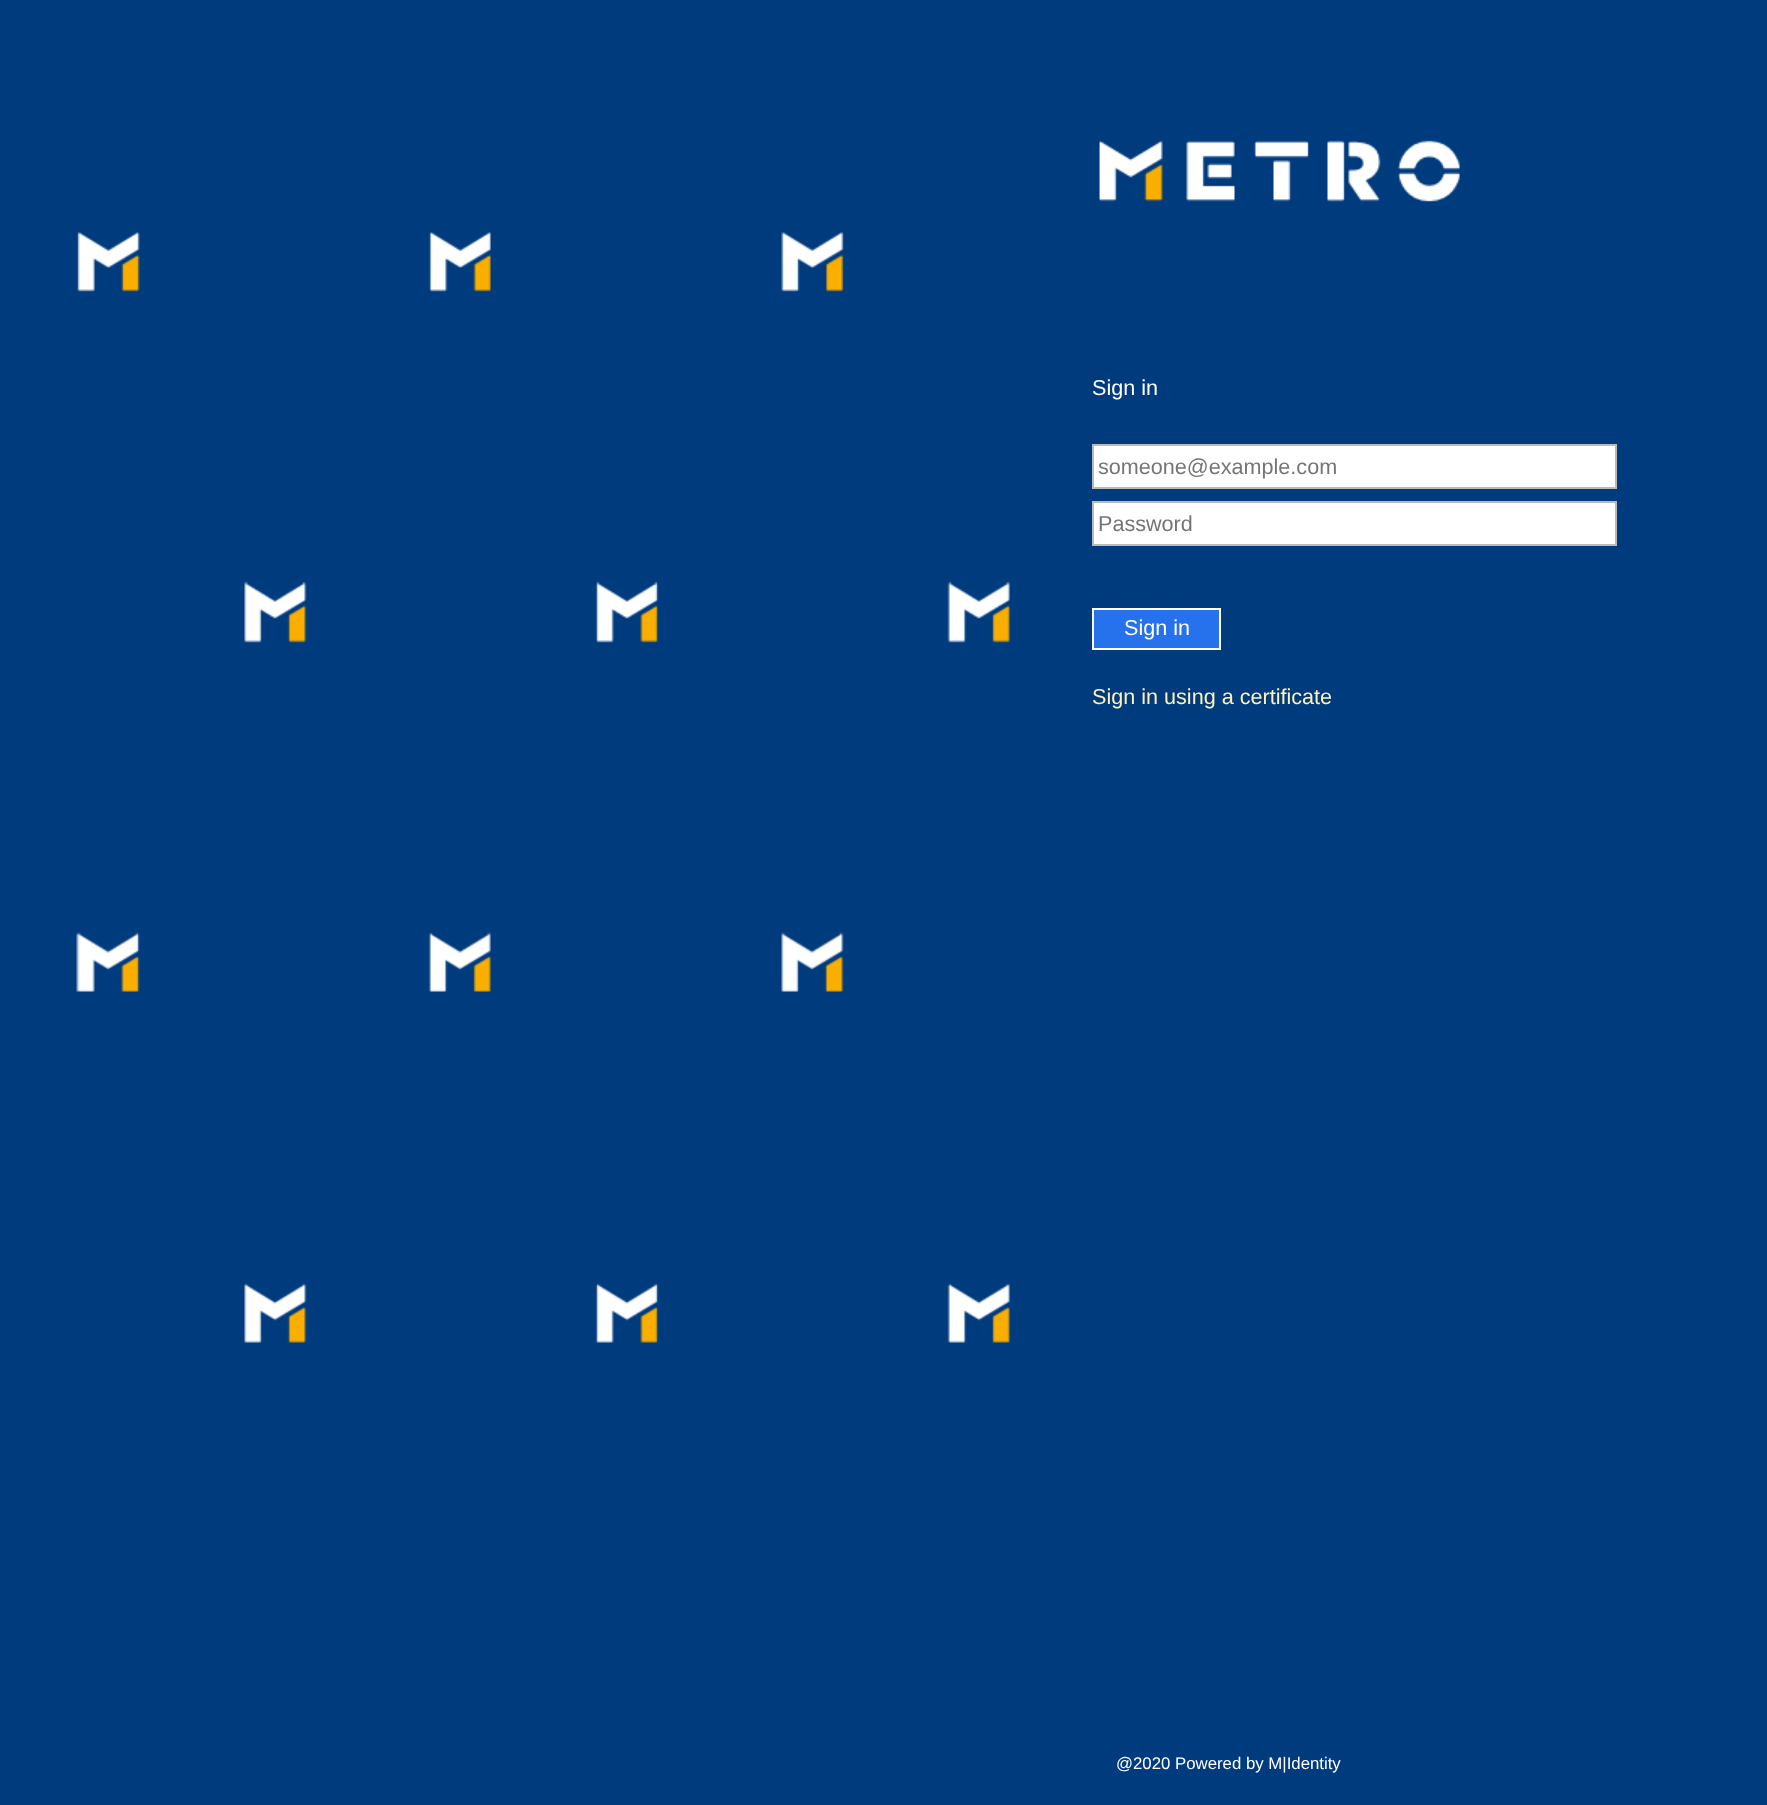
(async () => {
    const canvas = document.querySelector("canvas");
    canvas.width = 1767;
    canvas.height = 1805;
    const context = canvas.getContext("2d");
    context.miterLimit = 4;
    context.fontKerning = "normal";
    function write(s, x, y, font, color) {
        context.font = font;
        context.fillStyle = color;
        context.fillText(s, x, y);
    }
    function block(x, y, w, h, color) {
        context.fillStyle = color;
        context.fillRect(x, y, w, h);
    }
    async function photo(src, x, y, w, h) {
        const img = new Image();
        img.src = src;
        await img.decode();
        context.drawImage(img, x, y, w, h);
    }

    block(0, 0, 1767, 1805, "rgb(0, 59, 126)");
    await photo("media/1.png", 76, 232, 934, 1111);
    await photo("media/2.png", 1099, 140, 361, 62);
    write("Sign in", 1092, 395, "21.6px Liberation Sans", "rgb(255, 255, 255)");
    context.beginPath();
    context.rect(1093, 445, 523, 43);
    context.fill();
    context.strokeStyle = "rgb(186, 186, 186)";
    context.lineWidth = 2;
    context.stroke();
    write("someone@example.com", 1098, 474, "21.6px Liberation Sans", "rgb(117, 117, 117)");
    context.fillStyle = "rgb(255, 255, 255)";
    context.beginPath();
    context.rect(1093, 502, 523, 43);
    context.fill();
    context.stroke();
    write("Password", 1098, 531, "21.6px Liberation Sans", "rgb(117, 117, 117)");
    context.fillStyle = "rgb(38, 114, 236)";
    context.beginPath();
    context.rect(1093, 609, 127, 40);
    context.fill();
    context.strokeStyle = "rgb(255, 255, 255)";
    context.stroke();
    write("Sign in", 1124, 635, "21.6px Liberation Sans", "rgb(255, 255, 255)");
    write("Sign in using a certificate", 1092, 704, "21.6px Liberation Sans", "rgb(255, 241, 185)");
    write("@2020 Powered by M|Identity", 1116, 1769, "16.8px Liberation Sans", "rgb(255, 255, 255)");
})();
